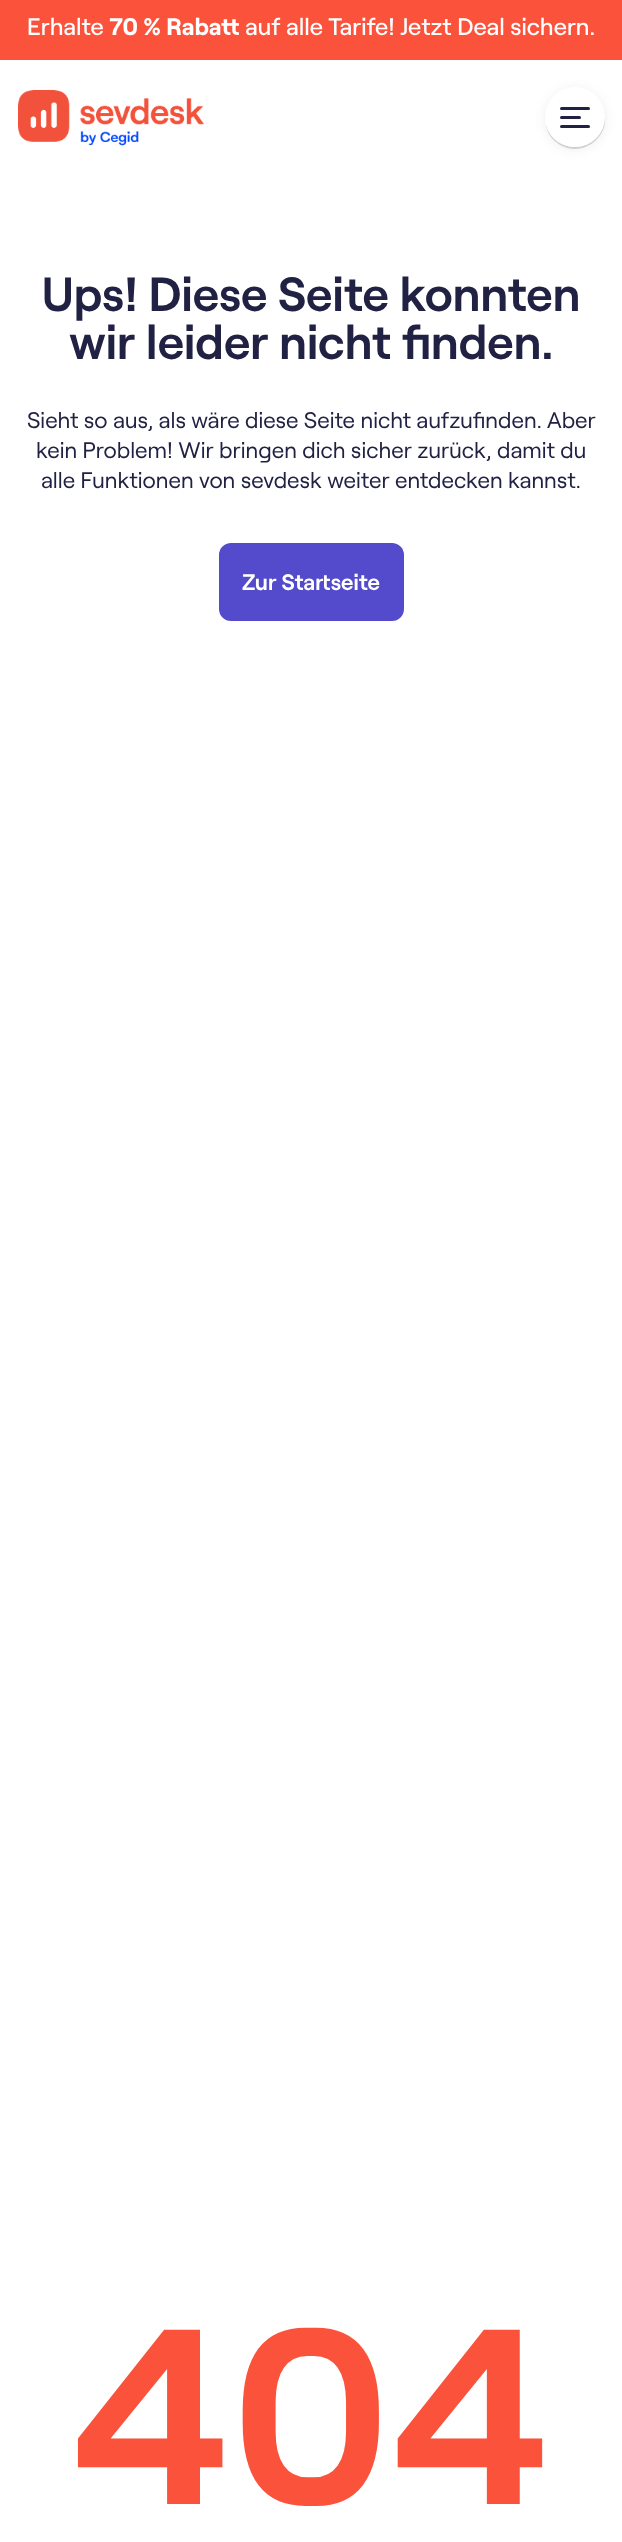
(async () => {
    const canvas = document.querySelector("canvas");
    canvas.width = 622;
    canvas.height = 2542;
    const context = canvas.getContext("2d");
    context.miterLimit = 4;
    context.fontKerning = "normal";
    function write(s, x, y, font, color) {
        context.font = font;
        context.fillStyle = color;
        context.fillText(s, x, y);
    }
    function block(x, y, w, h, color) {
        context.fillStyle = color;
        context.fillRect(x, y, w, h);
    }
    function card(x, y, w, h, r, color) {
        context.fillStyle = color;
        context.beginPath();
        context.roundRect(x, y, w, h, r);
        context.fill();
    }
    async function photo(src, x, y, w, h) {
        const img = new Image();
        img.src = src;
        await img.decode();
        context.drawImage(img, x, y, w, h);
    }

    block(0, 0, 622, 2542, "rgb(255, 255, 255)");
    block(0, 0, 622, 60, "rgb(251, 82, 59)");
    write("Erhalte", 27, 35, "500 24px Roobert", "rgb(255, 255, 255)");
    write("70 % Rabatt", 109, 35, "bold 24px Roobert", "rgb(255, 255, 255)");
    write("auf alle Tarife! Jetzt Deal sichern.", 245, 35, "500 24px Roobert", "rgb(255, 255, 255)");
    await photo("media/1.png", 18, 90, 186, 56);
    context.fillStyle = "rgb(217, 217, 217)";
    context.beginPath();
    context.moveTo(546, 125);
    context.bezierCurveTo(547, 132, 551, 138, 556, 142);
    context.bezierCurveTo(579, 161, 612, 138, 604, 111);
    context.bezierCurveTo(605, 117, 605, 123, 602, 129);
    context.bezierCurveTo(591, 155, 553, 152, 546, 125);
    context.closePath();
    context.fill();
    context.fillStyle = "rgba(0, 0, 0, 0.07)";
    context.filter = "blur(6px)";
    context.beginPath();
    context.roundRect(545, 89, 60, 60, 30);
    context.fill();
    context.filter = "none";
    context.fillStyle = "rgb(255, 255, 255)";
    context.beginPath();
    context.arc(575, 117, 30, 0, Math.PI * 2);
    context.fill();
    card(560, 107, 30, 3, 1.5, "rgb(33, 33, 68)");
    card(560, 116, 21, 3, 1.5, "rgb(33, 33, 68)");
    card(560, 125, 30, 3, 1.5, "rgb(33, 33, 68)");
    write("Ups! Diese Seite konnten", 42, 311, "600 48px Roobert", "rgb(33, 33, 68)");
    write("wir leider nicht finden.", 69, 359, "600 48px Roobert", "rgb(33, 33, 68)");
    write("Sieht so aus, als wäre diese Seite nicht aufzufinden. Aber", 27, 428, "22.5px Roobert", "rgb(33, 33, 68)");
    write("kein Problem! Wir bringen dich sicher zurück, damit du", 36, 458, "22.5px Roobert", "rgb(33, 33, 68)");
    write("alle Funktionen von sevdesk weiter entdecken kannst.", 41, 488, "22.5px Roobert", "rgb(33, 33, 68)");
    card(219, 543, 185, 78, 12, "rgb(83, 74, 204)");
    write("Zur Startseite", 242, 590, "600 22.5px Roobert", "rgb(255, 255, 255)");
    write("404", 70, 2504, "600 249px Roobert", "rgb(251, 82, 59)");
})();
